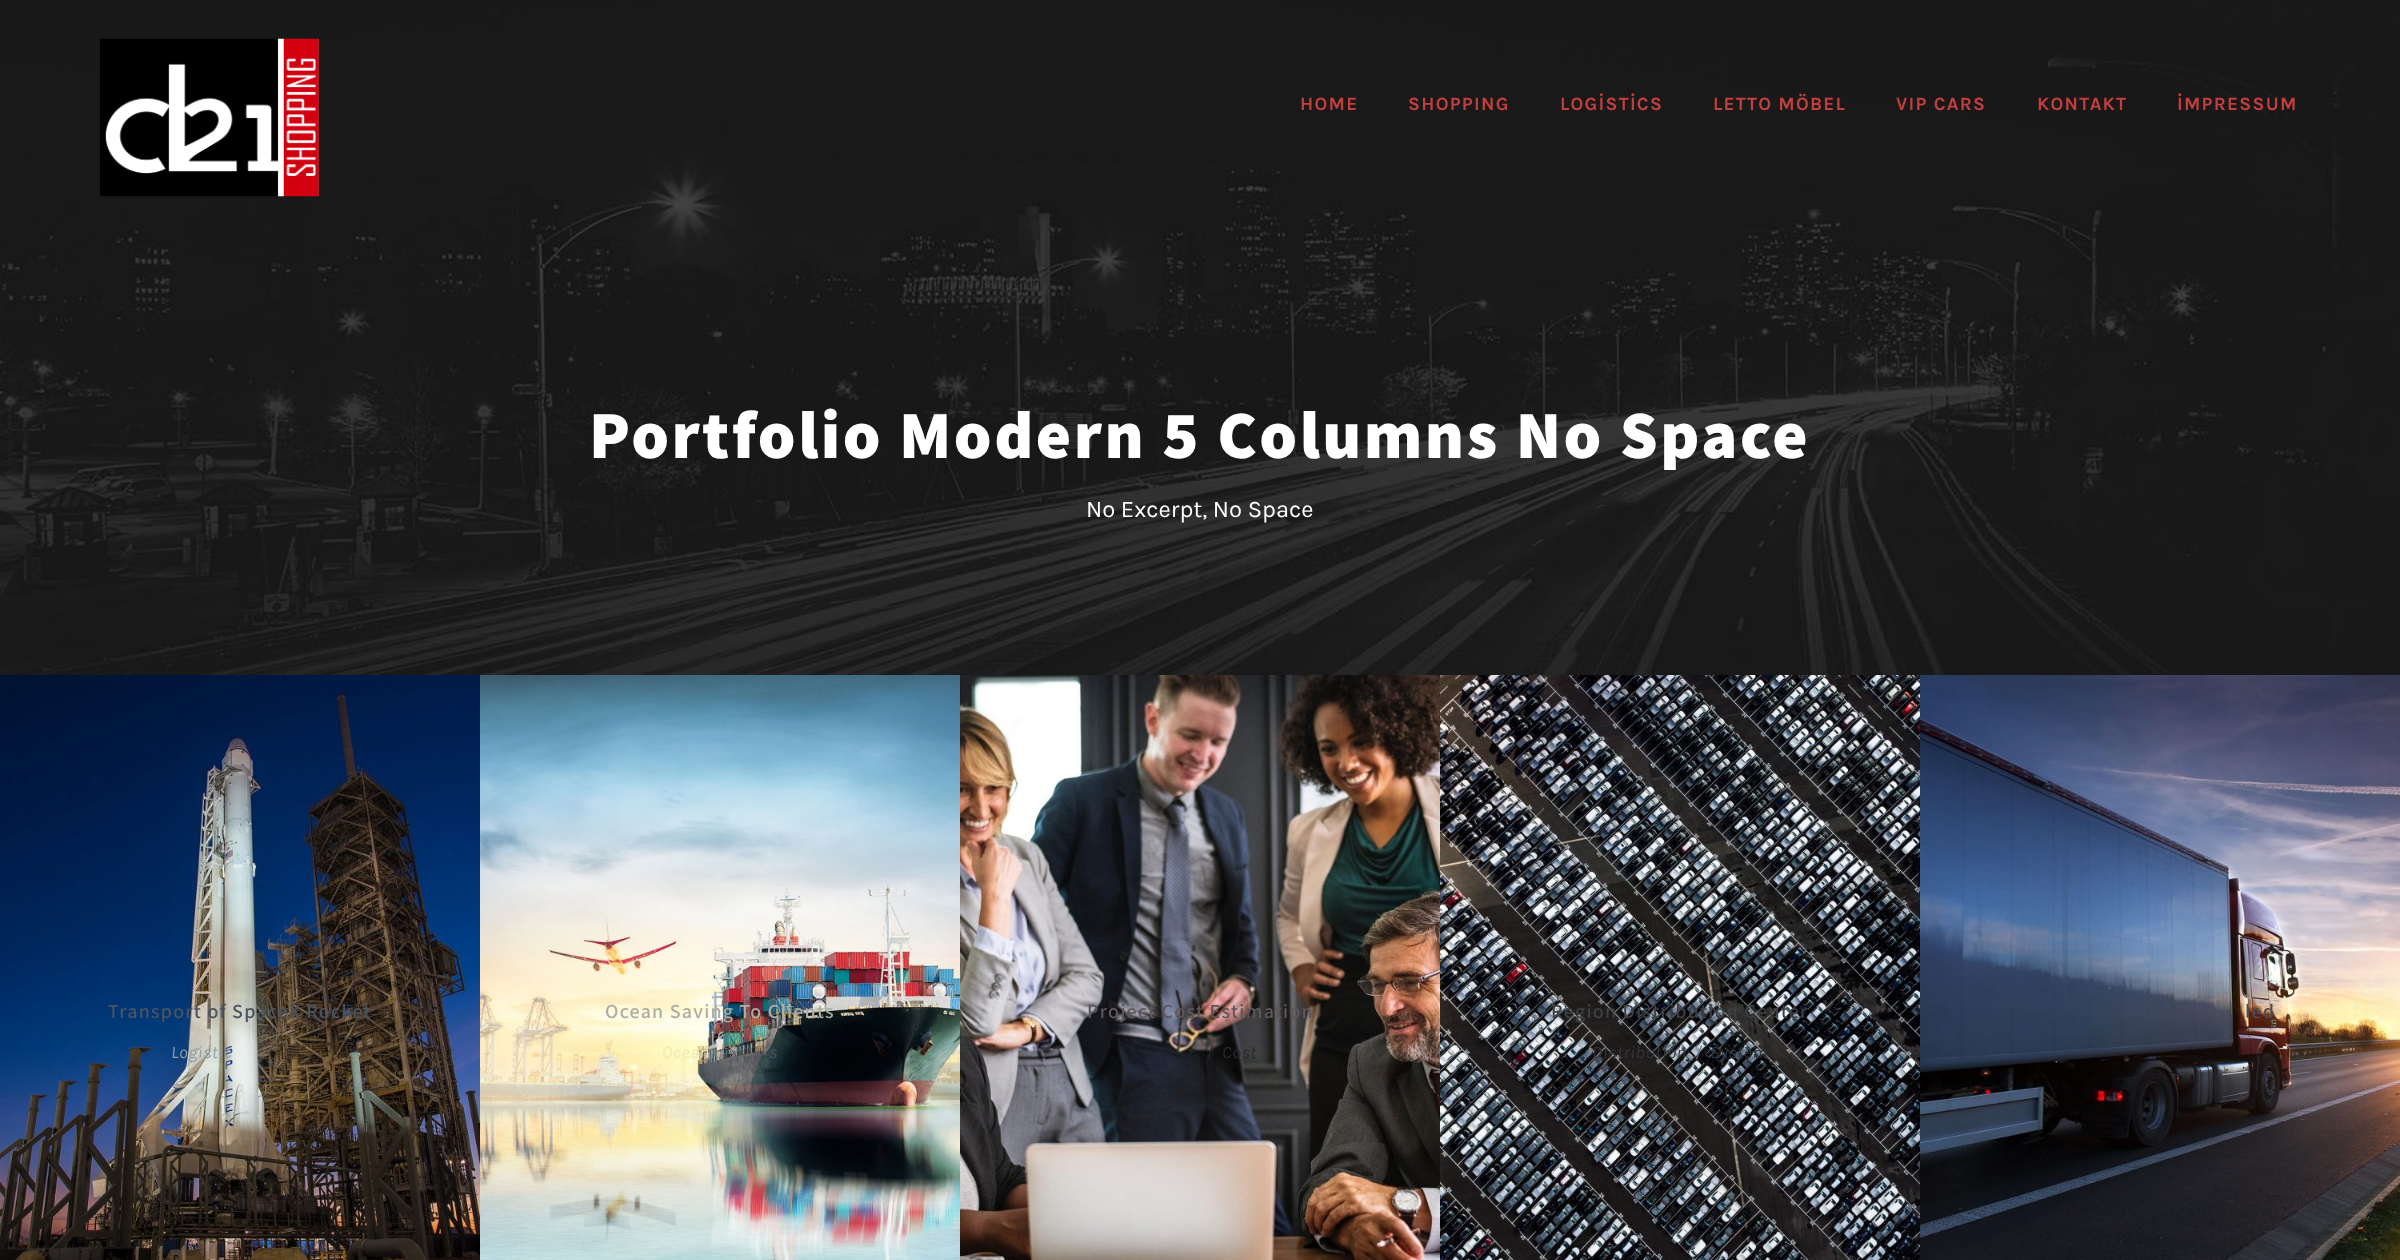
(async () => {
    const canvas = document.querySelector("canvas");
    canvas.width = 2400;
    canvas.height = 1260;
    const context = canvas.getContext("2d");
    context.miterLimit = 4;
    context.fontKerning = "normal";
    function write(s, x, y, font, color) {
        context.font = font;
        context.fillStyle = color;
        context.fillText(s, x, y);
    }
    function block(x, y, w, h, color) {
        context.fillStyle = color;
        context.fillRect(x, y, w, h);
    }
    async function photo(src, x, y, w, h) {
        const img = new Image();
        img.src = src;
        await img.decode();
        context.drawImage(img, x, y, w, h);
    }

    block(0, 0, 2400, 1260, "rgb(255, 255, 255)");
    await photo("media/2.png", 0, 0, 2400, 675);
    await photo("media/1.png", 100, 38, 219, 159);
    context.letterSpacing = "1.25px";
    write("HOME", 1300, 110, "bold 18.75px Karla", "rgb(196, 62, 62)");
    write("SHOPPING", 1408, 110, "bold 18.75px Karla", "rgb(196, 62, 62)");
    write("LOGİSTİCS", 1560, 110, "bold 18.75px Karla", "rgb(196, 62, 62)");
    write("LETTO MÖBEL", 1713, 110, "bold 18.75px Karla", "rgb(196, 62, 62)");
    write("VIP CARS", 1896, 110, "bold 18.75px Karla", "rgb(196, 62, 62)");
    write("KONTAKT", 2037, 110, "bold 18.75px Karla", "rgb(196, 62, 62)");
    write("İMPRESSUM", 2177, 110, "bold 18.75px Karla", "rgb(196, 62, 62)");
    context.letterSpacing = "2.5px";
    write("Portfolio Modern 5 Columns No Space", 589, 458, "800 67.5px Assistant", "rgb(255, 255, 255)");
    context.letterSpacing = "0px";
    write("No Excerpt, No Space", 1086, 517, "23.75px Karla", "rgb(255, 255, 255)");
    await photo("media/3.png", 0, 675, 480, 585);
    context.letterSpacing = "1.25px";
    write("Transport of SpaceX Rocket", 108, 1018, "600 20px Assistant", "rgb(73, 84, 96)");
    context.letterSpacing = "0.6px";
    write("Logistic", 171, 1058, "italic 17.5px Karla", "rgb(144, 158, 167)");
    await photo("media/4.png", 480, 675, 480, 585);
    context.letterSpacing = "1.25px";
    write("Ocean Saving To Clients", 605, 1018, "600 20px Assistant", "rgb(174, 173, 161)");
    context.letterSpacing = "0.6px";
    write("Ocean", 662, 1058, "italic 17.5px Karla", "rgb(237, 232, 181)");
    write("/", 718, 1058, "italic 17.5px Karla", "rgb(129, 134, 128)");
    write("s", 769, 1058, "italic 17.5px Karla", "rgb(79, 87, 87)");
    await photo("media/5.png", 960, 675, 480, 585);
    context.letterSpacing = "1.25px";
    write("Project Cost Estimation", 1087, 1018, "600 20px Assistant", "rgb(96, 85, 89)");
    context.letterSpacing = "0.6px";
    write("/", 1206, 1058, "italic 17.5px Karla", "rgb(42, 41, 41)");
    write("Cost", 1222, 1058, "italic 17.5px Karla", "rgb(42, 41, 41)");
    await photo("media/6.png", 1440, 675, 480, 585);
    context.letterSpacing = "1.25px";
    write("Region Distribution Center", 1551, 1018, "600 20px Assistant", "rgb(61, 64, 67)");
    context.letterSpacing = "0.6px";
    write("Distribution", 1592, 1058, "italic 17.5px Karla", "rgb(52, 53, 54)");
    write("/", 1695, 1058, "italic 17.5px Karla", "rgb(109, 116, 126)");
    write("System", 1710, 1058, "italic 17.5px Karla", "rgb(47, 53, 60)");
    await photo("media/7.png", 1920, 675, 480, 585);
    context.letterSpacing = "1.25px";
    write("led", 2245, 1018, "600 20px Assistant", "rgb(76, 75, 86)");
})();
